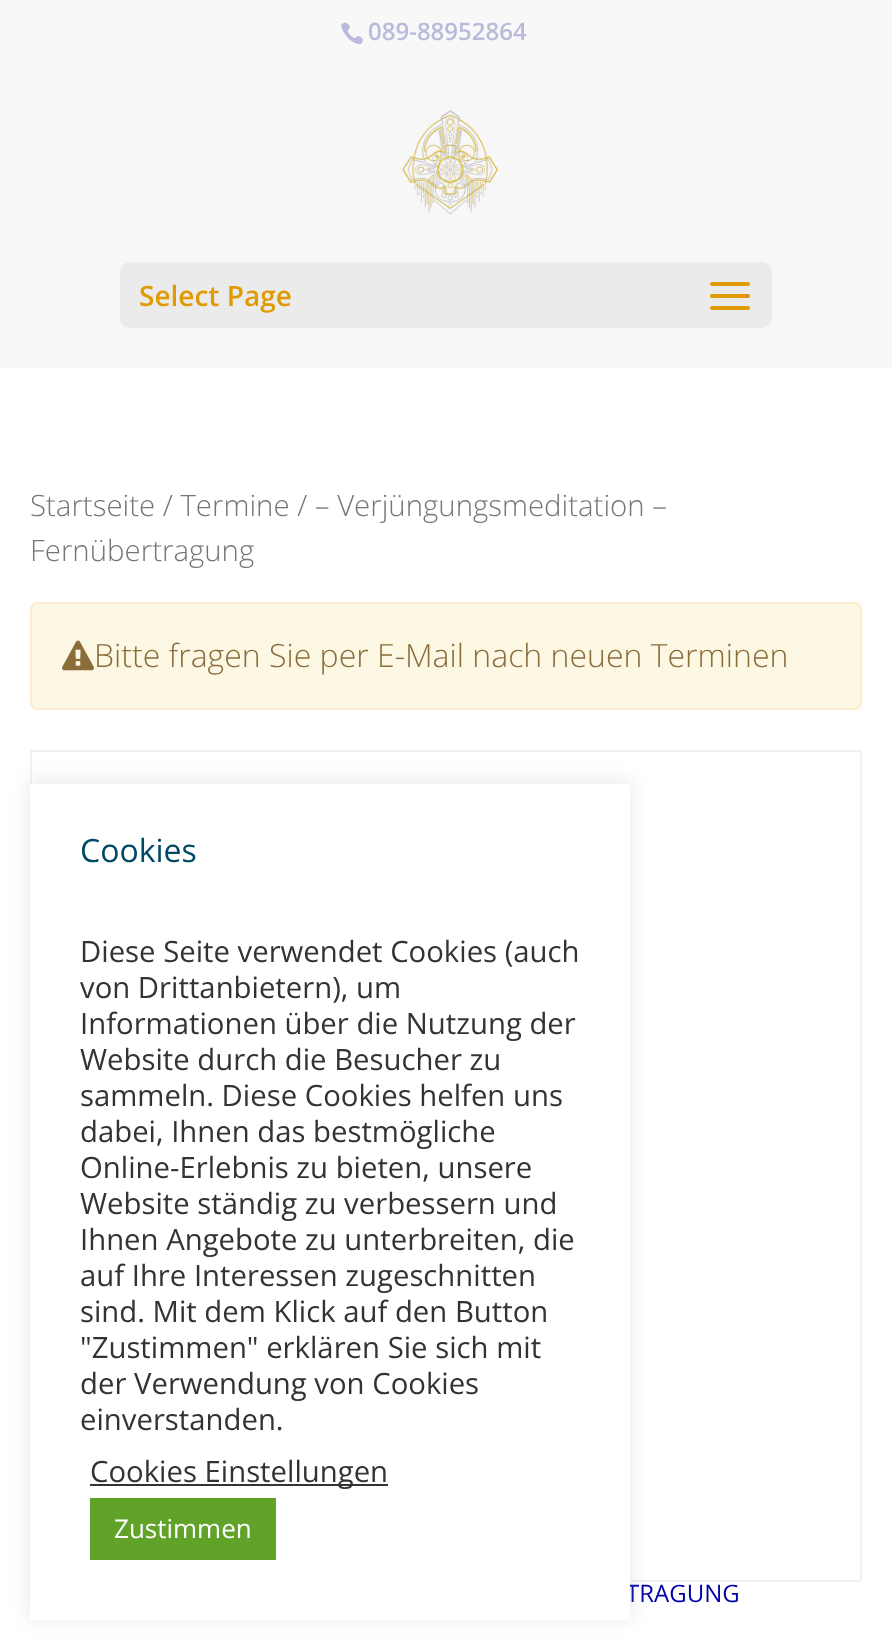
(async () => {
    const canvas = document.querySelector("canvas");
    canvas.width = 892;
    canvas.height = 1649;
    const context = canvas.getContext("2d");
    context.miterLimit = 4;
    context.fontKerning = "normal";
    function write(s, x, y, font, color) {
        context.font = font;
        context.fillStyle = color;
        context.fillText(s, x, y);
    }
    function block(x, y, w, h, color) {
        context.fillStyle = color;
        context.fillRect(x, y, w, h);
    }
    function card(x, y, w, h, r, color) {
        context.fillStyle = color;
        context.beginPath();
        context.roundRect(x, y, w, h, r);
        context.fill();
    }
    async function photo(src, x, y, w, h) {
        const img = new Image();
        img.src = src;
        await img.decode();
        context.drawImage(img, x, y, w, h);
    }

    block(0, 0, 892, 1649, "rgb(255, 255, 255)");
    block(0, 0, 892, 62, "rgb(248, 248, 248)");
    await photo("media/1.png", 341, 22, 22, 23);
    write("089-88952864", 368, 40, "600 24px Open Sans", "rgb(186, 187, 219)");
    block(0, 62, 892, 306, "rgb(247, 247, 247)");
    await photo("media/2.png", 402, 110, 96, 105);
    card(120, 262, 652, 66, 10, "rgb(235, 235, 235)");
    write("Select Page", 139, 306, "600 28px Open Sans", "rgb(224, 154, 2)");
    await photo("media/3.png", 710, 282, 40, 28);
    write("Startseite / Termine / – Verjüngungsmeditation –", 30, 516, "300 29.4px Open Sans", "rgb(118, 118, 118)");
    write("Fernübertragung", 30, 561, "300 29.4px Open Sans", "rgb(118, 118, 118)");
    context.fillStyle = "rgb(252, 248, 227)";
    context.beginPath();
    context.roundRect(31, 603, 830, 106, 7);
    context.fill();
    context.strokeStyle = "rgb(250, 235, 204)";
    context.lineWidth = 2;
    context.stroke();
    await photo("media/4.png", 62, 640, 32, 31);
    write("Bitte fragen Sie per E-Mail nach neuen Terminen", 94, 667, "300 32px Open Sans", "rgb(138, 109, 59)");
    context.strokeStyle = "rgb(242, 242, 242)";
    context.strokeRect(31, 751, 830, 830);
    write("TRAGUNG", 626, 1602, "24px Open Sans", "rgb(0, 0, 170)");
    context.fillStyle = "rgba(172, 171, 171, 0.3)";
    context.filter = "blur(10px)";
    context.beginPath();
    context.rect(30, 782, 600, 836);
    context.fill();
    context.filter = "none";
    block(30, 784, 600, 836, "rgb(255, 255, 255)");
    write("Cookies", 80, 862, "32px Open Sans", "rgb(0, 73, 101)");
    write("Diese Seite verwendet Cookies (auch", 80, 962, "29.3px Open Sans", "rgb(51, 51, 51)");
    write("von Drittanbietern), um", 80, 998, "29.3px Open Sans", "rgb(51, 51, 51)");
    write("Informationen über die Nutzung der", 80, 1034, "29.3px Open Sans", "rgb(51, 51, 51)");
    write("Website durch die Besucher zu", 80, 1070, "29.3px Open Sans", "rgb(51, 51, 51)");
    write("sammeln. Diese Cookies helfen uns", 80, 1106, "29.3px Open Sans", "rgb(51, 51, 51)");
    write("dabei, Ihnen das bestmögliche", 80, 1142, "29.3px Open Sans", "rgb(51, 51, 51)");
    write("Online-Erlebnis zu bieten, unsere", 80, 1178, "29.3px Open Sans", "rgb(51, 51, 51)");
    write("Website ständig zu verbessern und", 80, 1214, "29.3px Open Sans", "rgb(51, 51, 51)");
    write("Ihnen Angebote zu unterbreiten, die", 80, 1250, "29.3px Open Sans", "rgb(51, 51, 51)");
    write("auf Ihre Interessen zugeschnitten", 80, 1286, "29.3px Open Sans", "rgb(51, 51, 51)");
    write("sind. Mit dem Klick auf den Button", 80, 1322, "29.3px Open Sans", "rgb(51, 51, 51)");
    write("\"Zustimmen\" erklären Sie sich mit", 80, 1358, "29.3px Open Sans", "rgb(51, 51, 51)");
    write("der Verwendung von Cookies", 80, 1394, "29.3px Open Sans", "rgb(51, 51, 51)");
    write("einverstanden.", 80, 1430, "29.3px Open Sans", "rgb(51, 51, 51)");
    block(90, 1484, 298, 2, "rgb(51, 51, 51)");
    write("Cookies Einstellungen", 90, 1482, "29.3px Open Sans", "rgb(51, 51, 51)");
    block(90, 1498, 186, 62, "rgb(97, 162, 41)");
    write("Zustimmen", 114, 1538, "26px Open Sans", "rgb(255, 255, 255)");
})();
